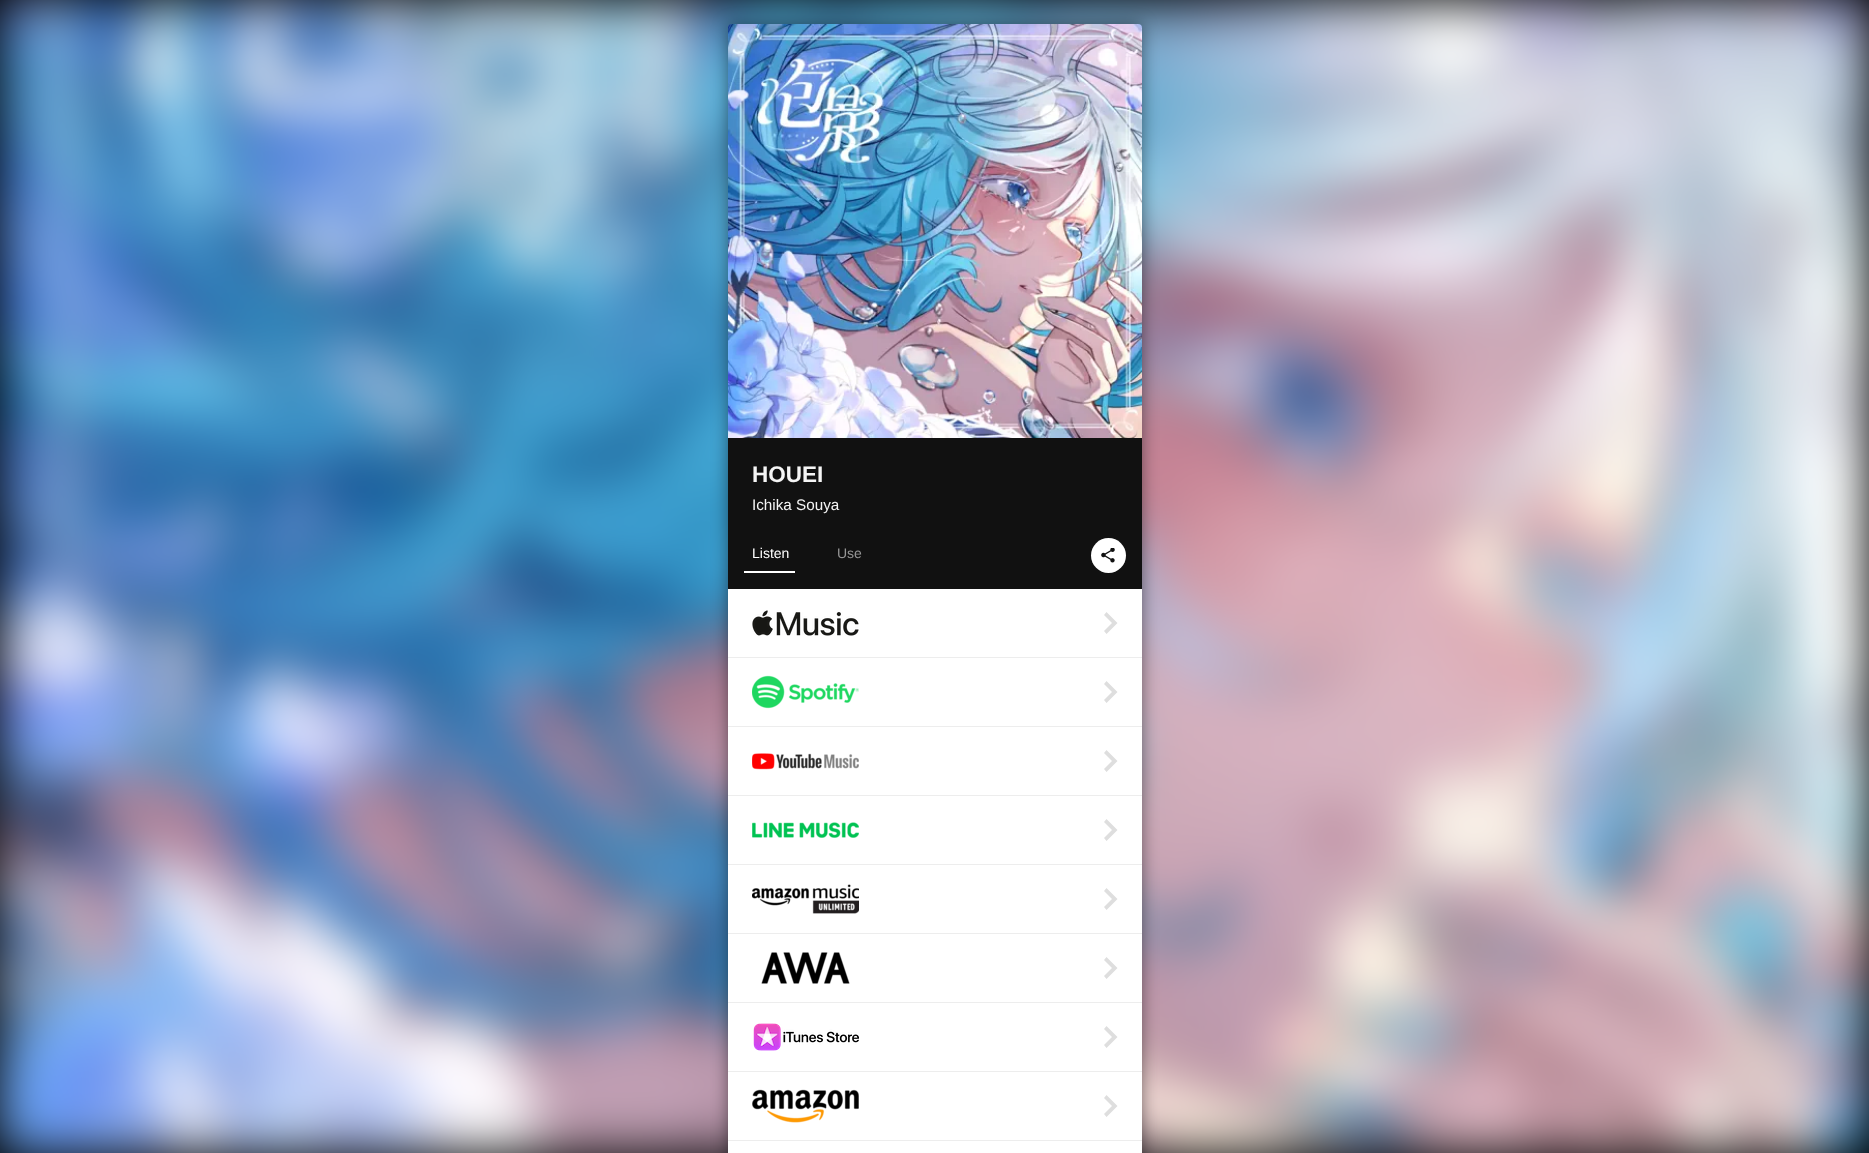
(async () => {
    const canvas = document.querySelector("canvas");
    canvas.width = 1869;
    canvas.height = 1153;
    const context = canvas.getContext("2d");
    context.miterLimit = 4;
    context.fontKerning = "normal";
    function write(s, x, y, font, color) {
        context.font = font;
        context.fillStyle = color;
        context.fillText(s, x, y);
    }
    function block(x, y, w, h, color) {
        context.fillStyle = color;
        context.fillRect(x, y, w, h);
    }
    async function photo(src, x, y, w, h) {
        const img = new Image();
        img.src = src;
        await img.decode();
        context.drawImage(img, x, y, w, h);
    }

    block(0, 0, 1869, 1153, "rgb(0, 0, 0)");
    await photo("media/1.png", 0, 0, 1869, 1153);
    context.fillStyle = "rgba(0, 0, 0, 0.47)";
    context.filter = "blur(8px)";
    context.beginPath();
    context.roundRect(728, 24, 414, 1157, 4);
    context.fill();
    context.filter = "none";
    await photo("media/2.png", 728, 24, 414, 414);
    block(728, 438, 414, 151, "rgb(17, 17, 17)");
    write("HOUEI", 752, 482, "bold 22.5px Liberation Sans", "rgb(245, 245, 245)");
    write("Ichika Souya", 752, 510, "15.25px Liberation Sans", "rgb(245, 245, 245)");
    write("Listen", 752, 558, "14px Liberation Sans", "rgb(255, 255, 255)");
    block(744, 571, 51, 2, "rgb(255, 255, 255)");
    write("Use", 837, 558, "14px Liberation Sans", "rgb(150, 150, 150)");
    context.fillStyle = "rgb(255, 255, 255)";
    context.beginPath();
    context.arc(1108.5, 555.5, 17.5, 0, Math.PI * 2);
    context.fill();
    await photo("media/3.png", 1101, 548, 14, 15);
    block(728, 589, 414, 564, "rgb(255, 255, 255)");
    await photo("media/4.png", 752, 610, 107, 26);
    context.fillStyle = "rgb(222, 222, 222)";
    context.beginPath();
    context.moveTo(1104, 631);
    context.lineTo(1112, 623);
    context.lineTo(1104, 615);
    context.lineTo(1106.5, 612);
    context.lineTo(1117.5, 623);
    context.lineTo(1106.5, 634);
    context.closePath();
    context.fill();
    block(728, 657, 414, 1, "rgb(237, 237, 237)");
    await photo("media/5.png", 752, 675, 107, 34);
    context.fillStyle = "rgb(222, 222, 222)";
    context.beginPath();
    context.moveTo(1104, 700);
    context.lineTo(1112, 692);
    context.lineTo(1104, 684);
    context.lineTo(1106.5, 681);
    context.lineTo(1117.5, 692);
    context.lineTo(1106.5, 703);
    context.closePath();
    context.fill();
    block(728, 726, 414, 1, "rgb(237, 237, 237)");
    await photo("media/6.png", 752, 753, 107, 17);
    context.fillStyle = "rgb(222, 222, 222)";
    context.beginPath();
    context.moveTo(1104, 769);
    context.lineTo(1112, 761);
    context.lineTo(1104, 753);
    context.lineTo(1106.5, 750);
    context.lineTo(1117.5, 761);
    context.lineTo(1106.5, 772);
    context.closePath();
    context.fill();
    block(728, 795, 414, 1, "rgb(237, 237, 237)");
    await photo("media/7.png", 752, 822, 107, 16);
    context.fillStyle = "rgb(222, 222, 222)";
    context.beginPath();
    context.moveTo(1104, 838);
    context.lineTo(1112, 830);
    context.lineTo(1104, 822);
    context.lineTo(1106.5, 819);
    context.lineTo(1117.5, 830);
    context.lineTo(1106.5, 841);
    context.closePath();
    context.fill();
    block(728, 864, 414, 1, "rgb(237, 237, 237)");
    await photo("media/8.png", 752, 884, 107, 30);
    context.fillStyle = "rgb(222, 222, 222)";
    context.beginPath();
    context.moveTo(1104, 907);
    context.lineTo(1112, 899);
    context.lineTo(1104, 891);
    context.lineTo(1106.5, 888);
    context.lineTo(1117.5, 899);
    context.lineTo(1106.5, 910);
    context.closePath();
    context.fill();
    block(728, 933, 414, 1, "rgb(237, 237, 237)");
    await photo("media/9.png", 761, 952, 89, 32);
    context.fillStyle = "rgb(222, 222, 222)";
    context.beginPath();
    context.moveTo(1104, 976);
    context.lineTo(1112, 968);
    context.lineTo(1104, 960);
    context.lineTo(1106.5, 957);
    context.lineTo(1117.5, 968);
    context.lineTo(1106.5, 979);
    context.closePath();
    context.fill();
    block(728, 1002, 414, 1, "rgb(237, 237, 237)");
    await photo("media/10.png", 753, 1023, 106, 28);
    context.fillStyle = "rgb(222, 222, 222)";
    context.beginPath();
    context.moveTo(1104, 1045);
    context.lineTo(1112, 1037);
    context.lineTo(1104, 1029);
    context.lineTo(1106.5, 1026);
    context.lineTo(1117.5, 1037);
    context.lineTo(1106.5, 1048);
    context.closePath();
    context.fill();
    block(728, 1071, 414, 1, "rgb(237, 237, 237)");
    await photo("media/11.png", 752, 1089, 107, 34);
    context.fillStyle = "rgb(222, 222, 222)";
    context.beginPath();
    context.moveTo(1104, 1114);
    context.lineTo(1112, 1106);
    context.lineTo(1104, 1098);
    context.lineTo(1106.5, 1095);
    context.lineTo(1117.5, 1106);
    context.lineTo(1106.5, 1117);
    context.closePath();
    context.fill();
    block(728, 1140, 414, 1, "rgb(237, 237, 237)");
})();
